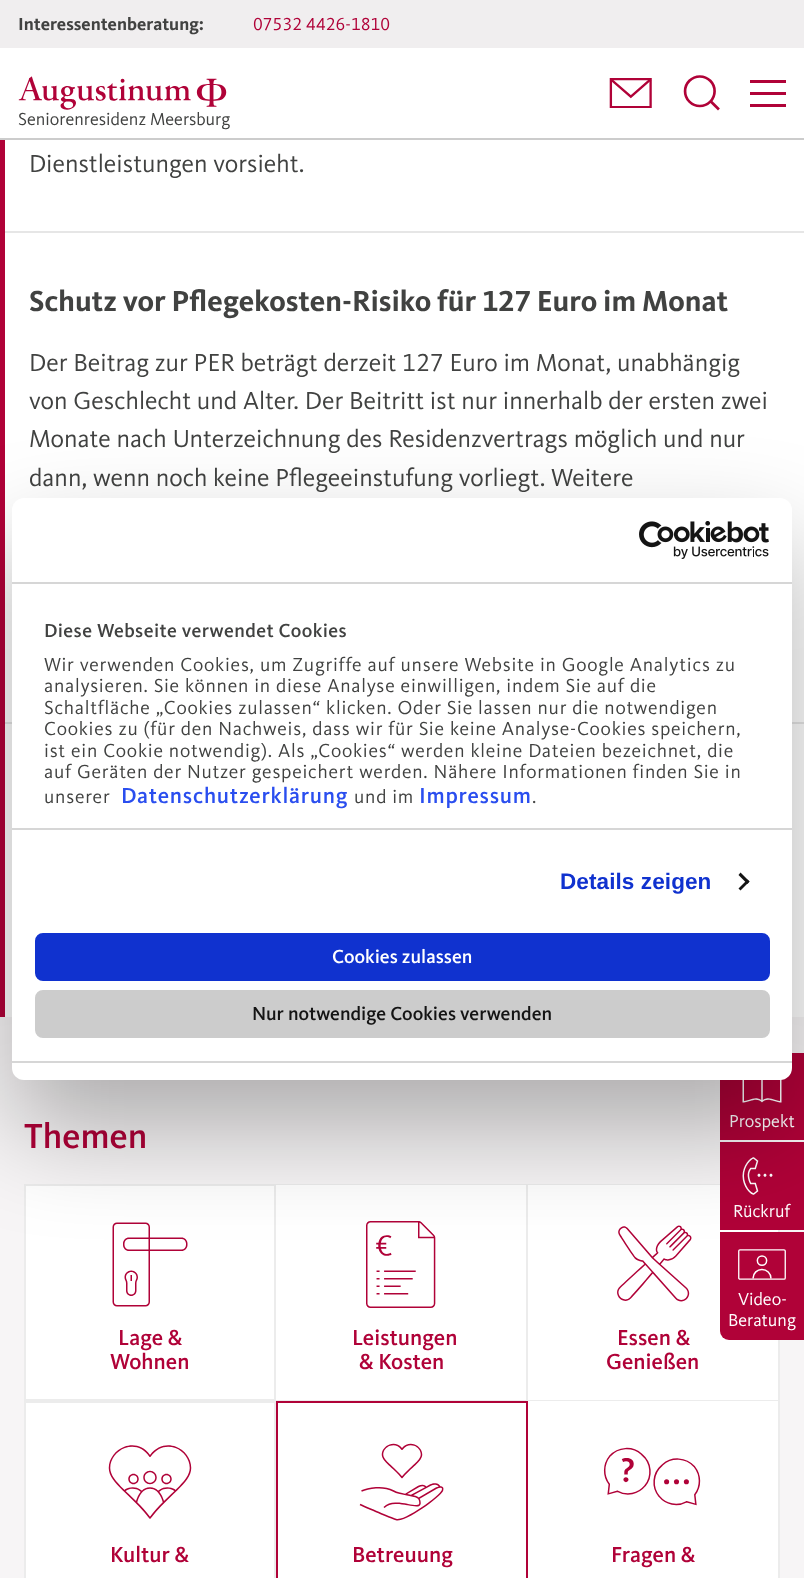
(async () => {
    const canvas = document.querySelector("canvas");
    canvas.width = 804;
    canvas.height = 1578;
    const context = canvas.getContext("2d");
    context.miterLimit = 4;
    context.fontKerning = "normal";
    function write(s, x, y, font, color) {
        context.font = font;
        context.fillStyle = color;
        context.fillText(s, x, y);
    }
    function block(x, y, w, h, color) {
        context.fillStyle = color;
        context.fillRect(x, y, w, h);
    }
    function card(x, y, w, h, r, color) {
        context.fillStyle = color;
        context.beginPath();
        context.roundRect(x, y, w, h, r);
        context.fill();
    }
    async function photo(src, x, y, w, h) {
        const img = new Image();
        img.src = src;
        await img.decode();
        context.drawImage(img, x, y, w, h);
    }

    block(0, 0, 804, 1578, "rgb(255, 255, 255)");
    block(0, 138, 804, 2, "rgb(204, 204, 204)");
    block(0, 0, 804, 48, "rgb(240, 238, 239)");
    write("Interessentenberatung:", 18, 30, "bold 18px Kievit", "rgb(65, 66, 65)");
    write("07532 4426-1810", 253, 30, "18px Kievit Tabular", "rgb(176, 2, 56)");
    await photo("media/1.png", 609, 78, 43, 30);
    await photo("media/2.png", 683, 75, 37, 36);
    block(750, 104, 36, 3, "rgb(176, 2, 56)");
    block(750, 80, 36, 3, "rgb(176, 2, 56)");
    block(750, 92, 36, 3, "rgb(176, 2, 56)");
    await photo("media/3.png", 18, 76, 209, 34);
    write("Seniorenresidenz Meersburg", 18, 125, "18px Kievit", "rgb(65, 66, 65)");
    block(0, 140, 5, 877, "rgb(176, 2, 56)");
    block(5, 231, 799, 2, "rgb(230, 230, 230)");
    write("Dienstleistungen vorsieht.", 29, 172, "25.5px Kievit", "rgb(65, 66, 65)");
    block(5, 722, 799, 2, "rgb(230, 230, 230)");
    write("Schutz vor Pflegekosten-Risiko für 127 Euro im Monat", 29, 311, "bold 30px Kievit Tabular", "rgb(65, 66, 65)");
    write("Der Beitrag zur PER beträgt derzeit 127 Euro im Monat, unabhängig", 29, 371, "25.5px Kievit Tabular", "rgb(65, 66, 65)");
    write("von Geschlecht und Alter. Der Beitritt ist nur innerhalb der ersten zwei", 29, 409, "25.5px Kievit", "rgb(65, 66, 65)");
    write("Monate nach Unterzeichnung des Residenzvertrags möglich und nur", 29, 447, "25.5px Kievit", "rgb(65, 66, 65)");
    write("dann, wenn noch keine Pflegeeinstufung vorliegt. Weitere", 29, 486, "25.5px Kievit", "rgb(65, 66, 65)");
    block(0, 1017, 804, 561, "rgb(247, 245, 246)");
    write("Themen", 24, 1148, "500 36px Kievit", "rgb(176, 2, 56)");
    context.fillStyle = "rgb(255, 255, 255)";
    context.beginPath();
    context.rect(25, 1185, 250, 215);
    context.fill();
    context.strokeStyle = "rgb(236, 236, 236)";
    context.lineWidth = 2;
    context.stroke();
    await photo("media/4.png", 112, 1222, 76, 85);
    write("Lage &", 118, 1345, "500 22.5px Kievit", "rgb(176, 2, 56)");
    write("Wohnen", 110, 1369, "500 22.5px Kievit", "rgb(176, 2, 56)");
    block(276, 1184, 252, 217, "rgb(255, 255, 255)");
    context.fillStyle = "rgb(236, 236, 236)";
    context.beginPath();
    context.moveTo(276, 1184);
    context.lineTo(528, 1184);
    context.lineTo(526, 1185);
    context.lineTo(276, 1185);
    context.closePath();
    context.fill();
    context.fillStyle = "rgba(65, 66, 65, 0.1)";
    context.beginPath();
    context.moveTo(528, 1184);
    context.lineTo(528, 1401);
    context.lineTo(526, 1400);
    context.lineTo(526, 1185);
    context.closePath();
    context.fill();
    context.beginPath();
    context.moveTo(528, 1401);
    context.lineTo(276, 1401);
    context.lineTo(276, 1400);
    context.lineTo(526, 1400);
    context.closePath();
    context.fill();
    await photo("media/5.png", 366, 1221, 70, 87);
    write("Leistungen", 352, 1345, "500 22.5px Kievit", "rgb(176, 2, 56)");
    write("& Kosten", 359, 1369, "500 22.5px Kievit", "rgb(176, 2, 56)");
    block(528, 1185, 252, 216, "rgb(255, 255, 255)");
    context.fillStyle = "rgb(236, 236, 236)";
    context.beginPath();
    context.moveTo(528, 1184);
    context.lineTo(780, 1184);
    context.lineTo(778, 1185);
    context.lineTo(528, 1185);
    context.closePath();
    context.fill();
    context.fillStyle = "rgba(65, 66, 65, 0.1)";
    context.beginPath();
    context.moveTo(780, 1184);
    context.lineTo(780, 1401);
    context.lineTo(778, 1400);
    context.lineTo(778, 1185);
    context.closePath();
    context.fill();
    context.beginPath();
    context.moveTo(780, 1401);
    context.lineTo(528, 1401);
    context.lineTo(528, 1400);
    context.lineTo(778, 1400);
    context.closePath();
    context.fill();
    await photo("media/6.png", 617, 1225, 75, 77);
    write("Essen &", 617, 1345, "500 22.5px Kievit", "rgb(176, 2, 56)");
    write("Genießen", 606, 1369, "500 22.5px Kievit", "rgb(176, 2, 56)");
    context.fillStyle = "rgb(255, 255, 255)";
    context.beginPath();
    context.rect(25, 1402, 250, 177);
    context.fill();
    context.stroke();
    await photo("media/7.png", 108, 1445, 84, 74);
    write("Kultur &", 110, 1562, "500 22.5px Kievit", "rgb(176, 2, 56)");
    context.fillStyle = "rgb(255, 255, 255)";
    context.beginPath();
    context.rect(277, 1402, 250, 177);
    context.fill();
    context.strokeStyle = "rgb(176, 2, 56)";
    context.stroke();
    await photo("media/8.png", 359, 1443, 85, 78);
    write("Betreuung", 352, 1562, "500 22.5px Kievit", "rgb(176, 2, 56)");
    block(528, 1401, 250, 177, "rgb(255, 255, 255)");
    context.fillStyle = "rgb(236, 236, 236)";
    context.beginPath();
    context.moveTo(780, 1401);
    context.lineTo(780, 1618);
    context.lineTo(778, 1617);
    context.lineTo(778, 1401);
    context.closePath();
    context.fill();
    await photo("media/9.png", 603, 1447, 98, 59);
    write("Fragen &", 611, 1562, "500 22.5px Kievit", "rgb(176, 2, 56)");
    block(720, 1053, 84, 87, "rgb(176, 2, 56)");
    await photo("media/10.png", 742, 1079, 40, 24);
    write("Prospekt", 729, 1127, "18px Kievit", "rgb(255, 255, 255)");
    block(720, 1142, 84, 88, "rgb(176, 2, 56)");
    await photo("media/11.png", 742, 1157, 31, 38);
    write("Rückruf", 733, 1217, "18px Kievit", "rgb(255, 255, 255)");
    context.fillStyle = "rgb(176, 2, 56)";
    context.beginPath();
    context.roundRect(720, 1232, 84, 108, [0, 0, 0, 9]);
    context.fill();
    await photo("media/12.png", 738, 1249, 48, 31);
    write("Video-", 738, 1305, "18px Kievit", "rgb(255, 255, 255)");
    write("Beratung", 728, 1326, "18px Kievit", "rgb(255, 255, 255)");
    context.fillStyle = "rgba(0, 0, 0, 0.3)";
    context.filter = "blur(51px)";
    context.beginPath();
    context.roundRect(12, 546, 780, 582, 12);
    context.fill();
    context.filter = "none";
    card(12, 498, 780, 582, 12, "rgb(255, 255, 255)");
    block(12, 582, 780, 2, "rgb(214, 214, 214)");
    await photo("media/13.png", 639, 521, 130, 38);
    block(12, 828, 780, 2, "rgb(214, 214, 214)");
    context.letterSpacing = "0.4px";
    write("Diese Webseite verwendet Cookies", 44, 637, "500 19.5px Kievit", "rgb(65, 66, 65)");
    context.letterSpacing = "0.75px";
    write("Wir verwenden Cookies, um Zugriffe auf unsere Website in Google Analytics zu", 44, 671, "19.5px Kievit", "rgb(65, 66, 65)");
    write("analysieren. Sie können in diese Analyse einwilligen, indem Sie auf die", 44, 692, "19.5px Kievit", "rgb(65, 66, 65)");
    write("Schaltfläche „Cookies zulassen“ klicken. Oder Sie lassen nur die notwendigen", 44, 714, "19.5px Kievit", "rgb(65, 66, 65)");
    write("Cookies zu (für den Nachweis, dass wir für Sie keine Analyse-Cookies speichern,", 44, 735, "19.5px Kievit", "rgb(65, 66, 65)");
    write("ist ein Cookie notwendig). Als „Cookies“ werden kleine Dateien bezeichnet, die", 44, 757, "19.5px Kievit", "rgb(65, 66, 65)");
    write("auf Geräten der Nutzer gespeichert werden. Nähere Informationen finden Sie in", 44, 778, "19.5px Kievit", "rgb(65, 66, 65)");
    write("unserer", 44, 803, "19.5px Kievit", "rgb(65, 66, 65)");
    write("Datenschutzerklärung", 121, 803, "500 22.5px Kievit", "rgb(42, 78, 239)");
    write("und im", 354, 803, "19.5px Kievit", "rgb(65, 66, 65)");
    write("Impressum", 419, 803, "500 22.5px Kievit", "rgb(42, 78, 239)");
    write(".", 532, 803, "19.5px Kievit", "rgb(65, 66, 65)");
    context.letterSpacing = "0.1px";
    write("Details zeigen", 560, 889, "bold 22.5px Liberation Sans", "rgb(16, 50, 207)");
    context.fillStyle = "rgb(20, 20, 20)";
    context.beginPath();
    context.moveTo(740.5, 872.5);
    context.lineTo(749.5, 881.5);
    context.lineTo(747.5, 884);
    context.lineTo(738.5, 875);
    context.closePath();
    context.fill();
    context.beginPath();
    context.moveTo(747.5, 879.5);
    context.lineTo(749.5, 881.5);
    context.lineTo(740.5, 890.5);
    context.lineTo(738.5, 888.5);
    context.closePath();
    context.fill();
    block(12, 1061, 780, 2, "rgb(214, 214, 214)");
    context.fillStyle = "rgb(16, 50, 207)";
    context.beginPath();
    context.roundRect(36.5, 934.5, 732, 45, 6.5);
    context.fill();
    context.strokeStyle = "rgb(16, 50, 207)";
    context.lineWidth = 3;
    context.stroke();
    context.letterSpacing = "0px";
    write("Cookies zulassen", 332, 963, "500 19.5px Kievit", "rgb(255, 255, 255)");
    context.fillStyle = "rgb(204, 204, 204)";
    context.beginPath();
    context.roundRect(36.5, 991.5, 732, 45, 6.5);
    context.fill();
    context.strokeStyle = "rgb(204, 204, 204)";
    context.stroke();
    write("Nur notwendige Cookies verwenden", 252, 1020, "500 19.5px Kievit", "rgb(20, 20, 20)");
})();
